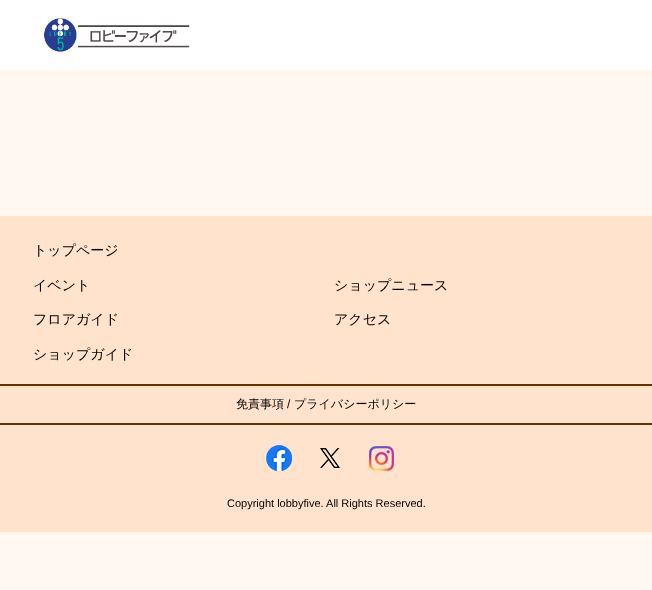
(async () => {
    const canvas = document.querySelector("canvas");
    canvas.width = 652;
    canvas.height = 590;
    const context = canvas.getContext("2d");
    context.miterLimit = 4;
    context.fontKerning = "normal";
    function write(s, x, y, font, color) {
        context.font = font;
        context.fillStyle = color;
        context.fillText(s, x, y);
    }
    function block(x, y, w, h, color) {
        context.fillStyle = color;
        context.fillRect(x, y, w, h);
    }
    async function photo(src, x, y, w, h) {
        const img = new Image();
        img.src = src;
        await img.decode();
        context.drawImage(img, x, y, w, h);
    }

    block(0, 0, 652, 590, "rgb(255, 247, 240)");
    block(0, 0, 652, 70, "rgb(255, 255, 255)");
    await photo("media/1.png", 44, 18, 146, 34);
    block(0, 216, 652, 316, "rgb(255, 227, 204)");
    write("トップページ", 33, 255, "500 14px WenQuanYi Zen Hei", "rgb(0, 0, 0)");
    write("イベント", 33, 290, "500 14px WenQuanYi Zen Hei", "rgb(0, 0, 0)");
    write("ショップニュース", 334, 290, "500 14px WenQuanYi Zen Hei", "rgb(0, 0, 0)");
    write("フロアガイド", 33, 324, "500 14px WenQuanYi Zen Hei", "rgb(0, 0, 0)");
    write("アクセス", 334, 324, "500 14px WenQuanYi Zen Hei", "rgb(0, 0, 0)");
    write("ショップガイド", 33, 359, "500 14px WenQuanYi Zen Hei", "rgb(0, 0, 0)");
    block(0, 384, 652, 2, "rgb(102, 51, 0)");
    block(0, 423, 652, 2, "rgb(102, 51, 0)");
    write("免責事項", 236, 408, "500 12px WenQuanYi Zen Hei", "rgb(0, 0, 0)");
    write("/", 287, 408, "12px Liberation Sans", "rgb(0, 0, 0)");
    write("プライバシーポリシー", 294, 408, "500 12px WenQuanYi Zen Hei", "rgb(0, 0, 0)");
    await photo("media/2.png", 266, 445, 26, 26);
    await photo("media/3.png", 320, 448, 20, 20);
    await photo("media/4.png", 369, 446, 25, 25);
    write("Copyright lobbyfive. All Rights Reserved.", 227, 507, "11px Liberation Sans", "rgb(0, 0, 0)");
})();
